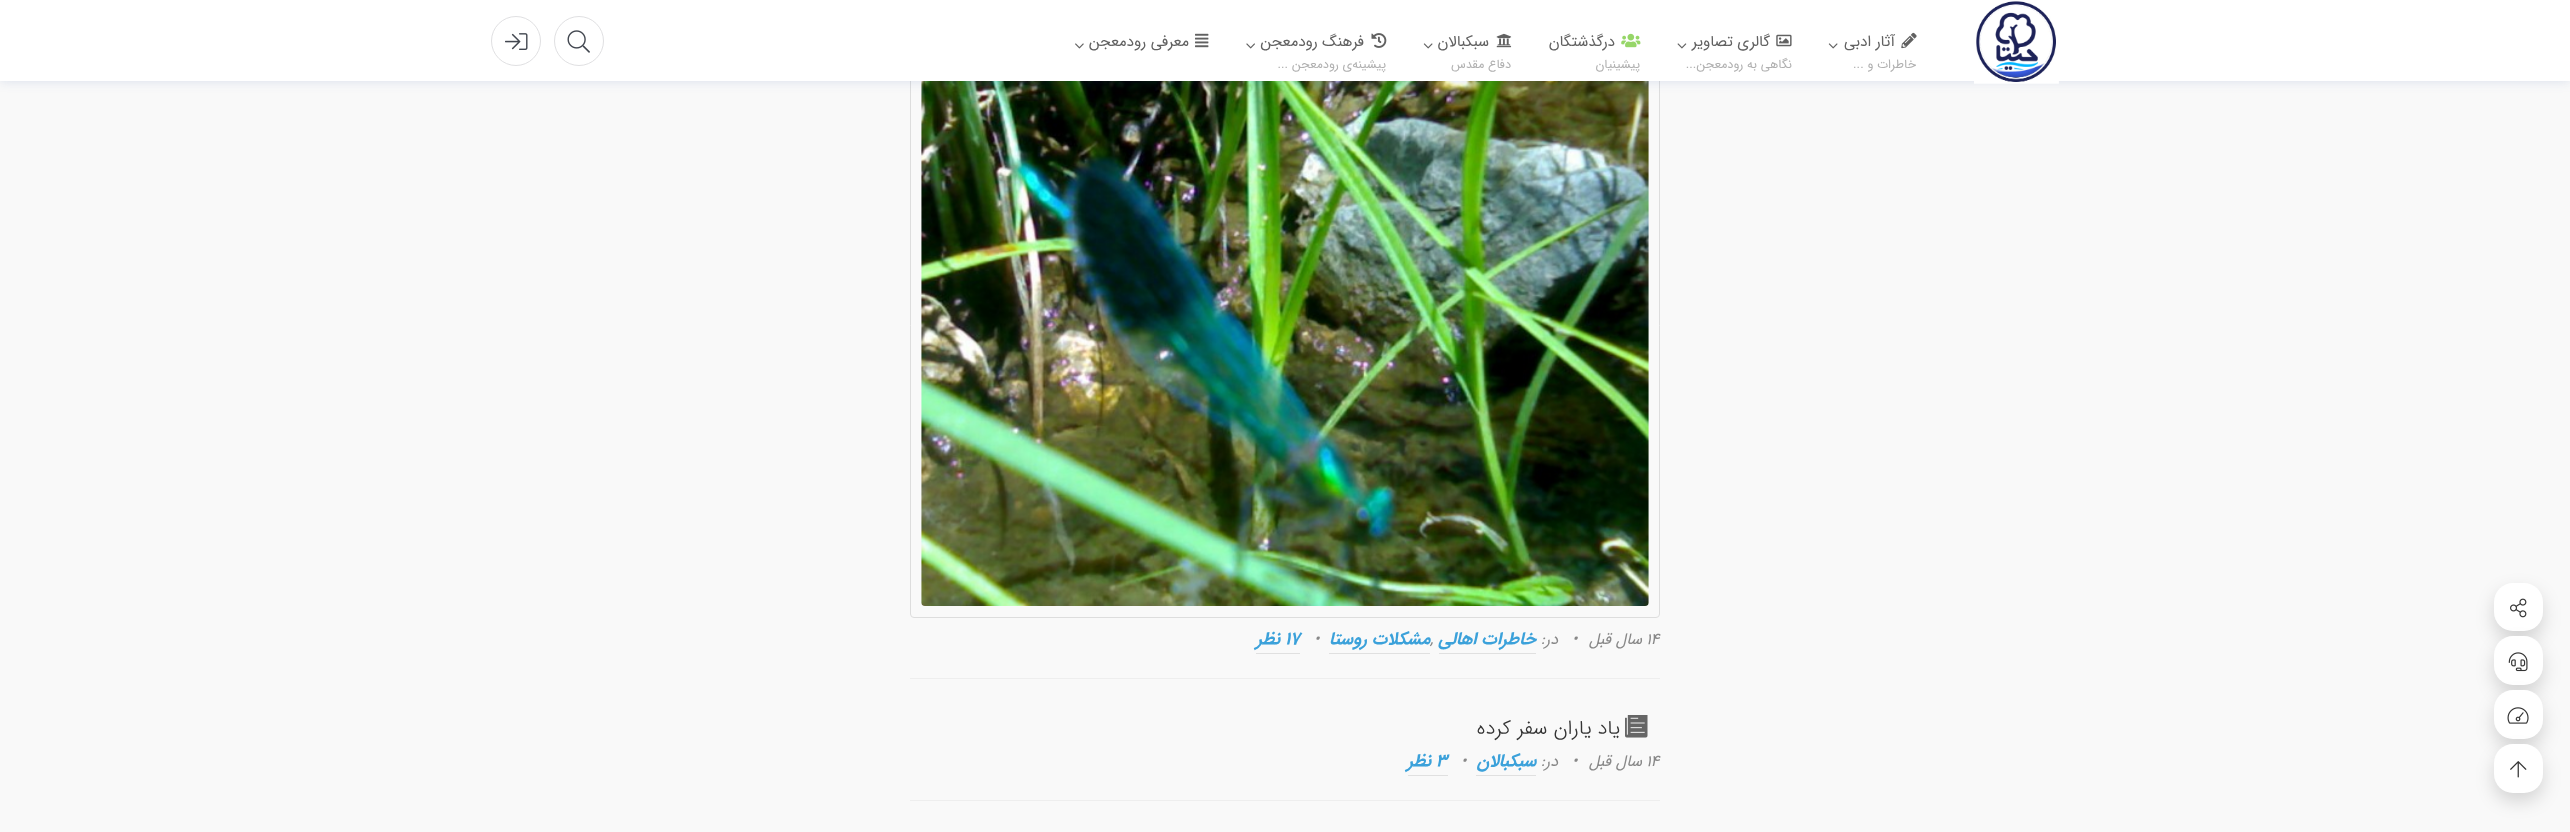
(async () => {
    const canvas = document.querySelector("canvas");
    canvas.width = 2570;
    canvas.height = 832;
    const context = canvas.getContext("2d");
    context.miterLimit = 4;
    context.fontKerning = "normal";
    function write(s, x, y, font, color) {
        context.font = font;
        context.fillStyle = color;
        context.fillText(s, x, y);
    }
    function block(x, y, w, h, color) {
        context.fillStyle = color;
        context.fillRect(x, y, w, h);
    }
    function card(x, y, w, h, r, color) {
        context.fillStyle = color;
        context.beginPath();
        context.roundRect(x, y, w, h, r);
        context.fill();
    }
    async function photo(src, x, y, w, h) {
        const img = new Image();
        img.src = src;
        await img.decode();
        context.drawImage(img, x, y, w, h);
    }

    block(0, 0, 2570, 832, "rgb(249, 249, 249)");
    context.beginPath();
    context.roundRect(910.5, 33.5, 749, 584, 3.5);
    context.strokeStyle = "rgb(221, 221, 221)";
    context.stroke();
    await photo("media/18.png", 921, 81, 728, 525);
    context.fillStyle = "rgba(28, 76, 156, 0.15)";
    context.filter = "blur(6px)";
    context.beginPath();
    context.rect(0, 0, 2570, 81);
    context.fill();
    context.filter = "none";
    block(0, 0, 2570, 81, "rgb(255, 255, 255)");
    await photo("media/1.png", 1974, 1, 85, 83);
    await photo("media/2.png", 1901, 32, 16, 17);
    context.direction = "rtl";
    write("آثار ادبی", 1895, 46, "15.25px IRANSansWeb", "rgb(97, 97, 97)");
    write("خاطرات و ...", 1916, 68, "12.5px IRANSansWeb", "rgb(176, 176, 176)");
    await photo("media/3.png", 1828, 43, 10, 6);
    write("گالری تصاویر", 1770, 46, "15.25px IRANSansWeb", "rgb(97, 97, 97)");
    write("نگاهی به رودمعجن...", 1792, 68, "12.5px IRANSansWeb", "rgb(176, 176, 176)");
    await photo("media/4.png", 1776, 34, 16, 13);
    await photo("media/5.png", 1677, 43, 10, 6);
    write("درگذشتگان", 1615, 46, "15.25px IRANSansWeb", "rgb(97, 97, 97)");
    write("پیشینیان", 1640, 68, "12.5px IRANSansWeb", "rgb(176, 176, 176)");
    await photo("media/6.png", 1621, 33, 20, 15);
    await photo("media/7.png", 1496, 33, 16, 15);
    write("سبکبالان", 1489, 46, "15.25px IRANSansWeb", "rgb(97, 97, 97)");
    write("دفاع مقدس", 1511, 68, "12.5px IRANSansWeb", "rgb(176, 176, 176)");
    await photo("media/3.png", 1423, 43, 10, 6);
    write("فرهنگ رودمعجن", 1364, 46, "15.25px IRANSansWeb", "rgb(97, 97, 97)");
    write("پیشینه‌ی رودمعجن ...", 1386, 68, "12.5px IRANSansWeb", "rgb(176, 176, 176)");
    await photo("media/8.png", 1371, 33, 16, 15);
    await photo("media/9.png", 1246, 43, 9, 6);
    await photo("media/10.png", 1195, 33, 14, 15);
    write("معرفی رودمعجن", 1189, 46, "15.25px IRANSansWeb", "rgb(97, 97, 97)");
    await photo("media/11.png", 1075, 43, 9, 6);
    context.beginPath();
    context.arc(579, 41, 24.5, 0, Math.PI * 2);
    context.strokeStyle = "rgb(224, 224, 226)";
    context.stroke();
    await photo("media/12.png", 567, 30, 23, 23);
    context.beginPath();
    context.arc(516, 41, 24.5, 0, Math.PI * 2);
    context.stroke();
    await photo("media/13.png", 505, 33, 23, 17);
    context.fillStyle = "rgba(0, 0, 0, 0.15)";
    context.filter = "blur(9px)";
    context.beginPath();
    context.roundRect(2494, 591, 49, 49, 19);
    context.fill();
    context.filter = "none";
    card(2494, 583, 49, 48, 19, "rgb(255, 255, 255)");
    await photo("media/14.png", 2510, 598, 17, 20);
    context.fillStyle = "rgba(0, 0, 0, 0.15)";
    context.filter = "blur(9px)";
    context.beginPath();
    context.roundRect(2494, 645, 49, 49, 19);
    context.fill();
    context.filter = "none";
    card(2494, 636, 49, 49, 19, "rgb(255, 255, 255)");
    await photo("media/15.png", 2508, 652, 20, 20);
    context.fillStyle = "rgba(0, 0, 0, 0.15)";
    context.filter = "blur(9px)";
    context.beginPath();
    context.roundRect(2494, 699, 49, 49, 19);
    context.fill();
    context.filter = "none";
    card(2494, 690, 49, 49, 19, "rgb(255, 255, 255)");
    await photo("media/16.png", 2507, 707, 22, 17);
    context.fillStyle = "rgba(0, 0, 0, 0.15)";
    context.filter = "blur(9px)";
    context.beginPath();
    context.roundRect(2494, 753, 49, 48, 19);
    context.fill();
    context.filter = "none";
    card(2494, 744, 49, 49, 19, "rgb(255, 255, 255)");
    await photo("media/17.png", 2510, 761, 17, 17);
    block(910, 678, 750, 1, "rgb(238, 238, 238)");
    context.direction = "ltr";
    write("۱۴", 1646, 644, "italic 16px IRANSansWeb", "rgb(136, 136, 136)");
    context.direction = "rtl";
    write("سال قبل", 1642, 644, "italic 16px IRANSansWeb", "rgb(136, 136, 136)");
    context.direction = "ltr";
    write("•", 1572, 644, "italic 16px IRANSansWeb", "rgb(136, 136, 136)");
    context.direction = "rtl";
    write("در:", 1558, 644, "italic 16px IRANSansWeb", "rgb(136, 136, 136)");
    write("خاطرات اهالی", 1536, 644, "italic bold 17.5px IRANSansWeb", "rgb(59, 161, 218)");
    context.direction = "ltr";
    write(",", 1430, 644, "italic 16px IRANSansWeb", "rgb(136, 136, 136)");
    context.direction = "rtl";
    write("مشکلات روستا", 1430, 644, "italic bold 17.5px IRANSansWeb", "rgb(59, 161, 218)");
    context.direction = "ltr";
    write("•", 1314, 644, "italic 16px IRANSansWeb", "rgb(136, 136, 136)");
    write("۱۷", 1285, 644, "italic bold 17.5px IRANSansWeb", "rgb(59, 161, 218)");
    context.direction = "rtl";
    write("نظر", 1280, 644, "italic bold 17.5px IRANSansWeb", "rgb(59, 161, 218)");
    block(1256, 653, 44, 1, "rgb(224, 224, 224)");
    block(1439, 653, 97, 1, "rgb(224, 224, 224)");
    block(1329, 653, 101, 1, "rgb(224, 224, 224)");
    block(910, 800, 750, 1, "rgb(238, 238, 238)");
    await photo("media/19.png", 1625, 715, 23, 23);
    write("یاد یاران سفر کرده", 1620, 734, "300 20px IRANSansWeb", "rgb(51, 51, 51)");
    context.direction = "ltr";
    write("۱۴", 1646, 766, "italic 16px IRANSansWeb", "rgb(136, 136, 136)");
    context.direction = "rtl";
    write("سال قبل", 1642, 766, "italic 16px IRANSansWeb", "rgb(136, 136, 136)");
    context.direction = "ltr";
    write("•", 1572, 766, "italic 16px IRANSansWeb", "rgb(136, 136, 136)");
    context.direction = "rtl";
    write("در:", 1558, 766, "italic 16px IRANSansWeb", "rgb(136, 136, 136)");
    write("سبکبالان", 1536, 766, "italic bold 17.5px IRANSansWeb", "rgb(59, 161, 218)");
    block(1476, 775, 60, 1, "rgb(224, 224, 224)");
    context.direction = "ltr";
    write("•", 1461, 766, "italic 16px IRANSansWeb", "rgb(136, 136, 136)");
    write("۳", 1436, 766, "italic bold 17.5px IRANSansWeb", "rgb(59, 161, 218)");
    context.direction = "rtl";
    write("نظر", 1431, 766, "italic bold 17.5px IRANSansWeb", "rgb(59, 161, 218)");
    block(1408, 775, 40, 1, "rgb(224, 224, 224)");
})();
